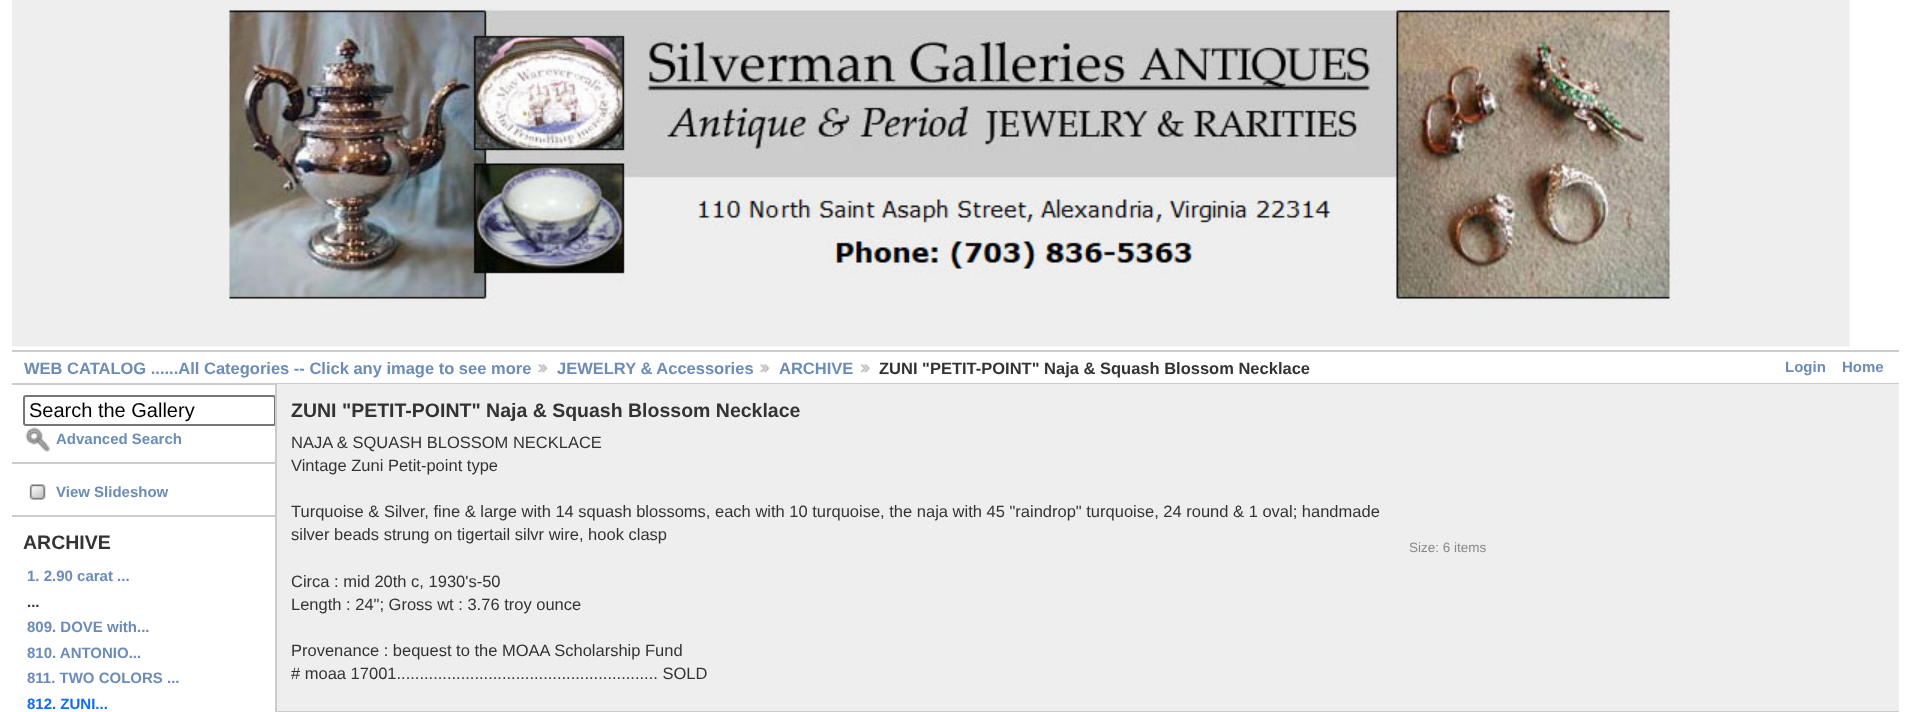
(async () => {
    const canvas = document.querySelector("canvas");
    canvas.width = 1911;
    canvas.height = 712;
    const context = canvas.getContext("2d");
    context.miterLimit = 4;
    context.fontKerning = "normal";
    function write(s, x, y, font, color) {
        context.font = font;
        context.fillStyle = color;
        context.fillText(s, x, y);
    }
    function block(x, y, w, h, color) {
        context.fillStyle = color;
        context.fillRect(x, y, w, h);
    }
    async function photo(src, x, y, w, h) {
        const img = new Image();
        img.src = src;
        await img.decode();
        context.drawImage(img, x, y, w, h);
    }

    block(0, 0, 1911, 712, "rgb(255, 255, 255)");
    await photo("media/1.png", 12, 0, 1838, 347);
    block(12, 350, 1887, 2, "rgb(204, 204, 204)");
    block(12, 383, 1887, 2, "rgb(204, 204, 204)");
    write("WEB CATALOG ......All Categories -- Click any image to see more", 24, 374, "bold 16.5px Liberation Sans", "rgb(107, 140, 183)");
    await photo("media/2.png", 538, 364, 10, 9);
    write("JEWELRY & Accessories", 557, 374, "bold 16.5px Liberation Sans", "rgb(107, 140, 183)");
    await photo("media/3.png", 760, 364, 10, 9);
    write("ARCHIVE", 779, 374, "bold 16.5px Liberation Sans", "rgb(107, 140, 183)");
    await photo("media/4.png", 860, 364, 11, 9);
    write("ZUNI \"PETIT-POINT\" Naja & Squash Blossom Necklace", 879, 374, "bold 16.5px Liberation Sans", "rgb(51, 51, 51)");
    write("Login", 1785, 372, "bold 15px Liberation Sans", "rgb(107, 140, 183)");
    write("Home", 1842, 372, "bold 15px Liberation Sans", "rgb(107, 140, 183)");
    block(276, 711, 1623, 1, "rgb(204, 204, 204)");
    block(275, 384, 2, 328, "rgb(204, 204, 204)");
    block(12, 462, 263, 2, "rgb(204, 204, 204)");
    context.save();
    context.beginPath();
    context.rect(12, 384, 263, 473);
    context.clip();
    context.beginPath();
    context.roundRect(24, 396, 251, 29, 2);
    context.strokeStyle = "rgb(118, 118, 118)";
    context.lineWidth = 2;
    context.stroke();
    context.restore();
    write("Search the Gallery", 29, 417, "20px Liberation Sans", "rgb(0, 0, 0)");
    await photo("media/5.png", 25, 427, 25, 25);
    write("Advanced Search", 56, 444, "bold 15px Liberation Sans", "rgb(107, 140, 183)");
    block(12, 515, 263, 2, "rgb(204, 204, 204)");
    await photo("media/6.png", 29, 484, 17, 16);
    write("View Slideshow", 56, 497, "bold 15px Liberation Sans", "rgb(107, 140, 183)");
    write("ARCHIVE", 23, 549, "bold 19.5px Liberation Sans", "rgb(51, 51, 51)");
    write("1. 2.90 carat ...", 27, 581, "bold 15px Liberation Sans", "rgb(107, 140, 183)");
    write("...", 27, 607, "bold 15px Liberation Sans", "rgb(51, 51, 51)");
    write("809. DOVE with...", 27, 632, "bold 15px Liberation Sans", "rgb(107, 140, 183)");
    write("810. ANTONIO...", 27, 658, "bold 15px Liberation Sans", "rgb(107, 140, 183)");
    write("811. TWO COLORS ...", 27, 683, "bold 15px Liberation Sans", "rgb(107, 140, 183)");
    write("812. ZUNI...", 27, 709, "bold 15px Liberation Sans", "rgb(11, 108, 255)");
    block(277, 384, 1622, 327, "rgb(238, 238, 238)");
    write("ZUNI \"PETIT-POINT\" Naja & Squash Blossom Necklace", 291, 417, "bold 19.5px Liberation Sans", "rgb(51, 51, 51)");
    write("NAJA & SQUASH BLOSSOM NECKLACE", 291, 448, "16.5px Liberation Sans", "rgb(51, 51, 51)");
    write("Vintage Zuni Petit-point type", 291, 471, "16.5px Liberation Sans", "rgb(51, 51, 51)");
    write("Turquoise & Silver, fine & large with 14 squash blossoms, each with 10 turquoise, the naja with 45 \"raindrop\" turquoise, 24 round & 1 oval; handmade", 291, 517, "16.5px Liberation Sans", "rgb(51, 51, 51)");
    write("silver beads strung on tigertail silvr wire, hook clasp", 291, 540, "16.5px Liberation Sans", "rgb(51, 51, 51)");
    write("Circa : mid 20th c, 1930's-50", 291, 587, "16.5px Liberation Sans", "rgb(51, 51, 51)");
    write("Length : 24\"; Gross wt : 3.76 troy ounce", 291, 610, "16.5px Liberation Sans", "rgb(51, 51, 51)");
    write("Provenance : bequest to the MOAA Scholarship Fund", 291, 656, "16.5px Liberation Sans", "rgb(51, 51, 51)");
    write("# moaa 17001......................................................... SOLD", 291, 679, "16.5px Liberation Sans", "rgb(51, 51, 51)");
    write("Size: 6 items", 1409, 552, "13.5px Liberation Sans", "rgb(136, 136, 136)");
})();
